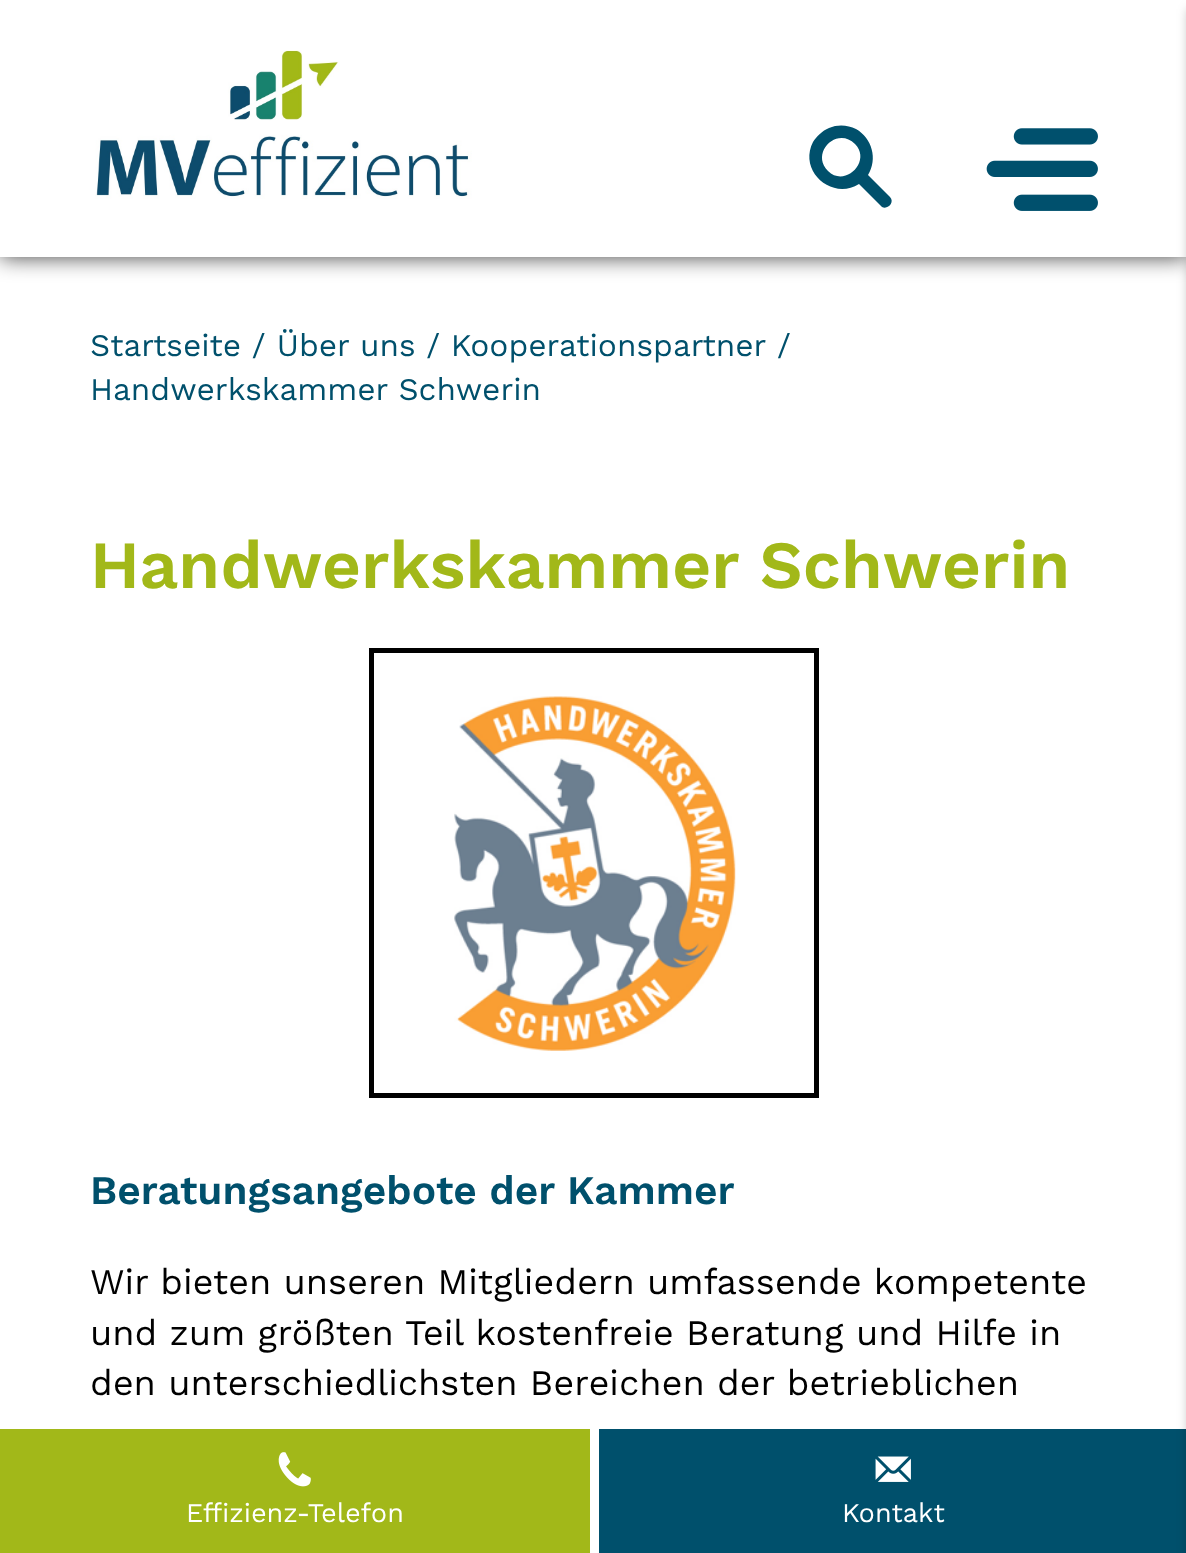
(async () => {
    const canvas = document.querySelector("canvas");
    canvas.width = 1186;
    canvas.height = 1553;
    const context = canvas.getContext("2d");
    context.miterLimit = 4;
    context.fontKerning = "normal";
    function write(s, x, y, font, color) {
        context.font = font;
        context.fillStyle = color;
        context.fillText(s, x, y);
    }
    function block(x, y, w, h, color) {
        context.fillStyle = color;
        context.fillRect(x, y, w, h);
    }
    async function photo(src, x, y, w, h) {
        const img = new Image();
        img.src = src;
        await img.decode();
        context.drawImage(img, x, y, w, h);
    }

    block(0, 0, 1186, 1553, "rgb(255, 255, 255)");
    context.save();
    context.beginPath();
    context.moveTo(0, 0);
    context.lineTo(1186, 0);
    context.lineTo(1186, 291);
    context.lineTo(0, 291);
    context.closePath();
    context.moveTo(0, 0);
    context.lineTo(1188, 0);
    context.lineTo(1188, 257);
    context.lineTo(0, 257);
    context.closePath();
    context.clip("evenodd");
    context.fillStyle = "rgba(0, 0, 0, 0.75)";
    context.filter = "blur(11px)";
    context.beginPath();
    context.rect(0, 0, 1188, 257);
    context.fill();
    context.filter = "none";
    context.restore();
    await photo("media/1.png", 95, 50, 377, 149);
    context.fillStyle = "rgb(0, 80, 108)";
    context.beginPath();
    context.moveTo(890, 197);
    context.lineTo(868, 175);
    context.bezierCurveTo(878, 159, 872, 138, 856, 129);
    context.bezierCurveTo(848, 125, 838, 124, 829, 128);
    context.bezierCurveTo(822, 131, 817, 136, 813, 142);
    context.bezierCurveTo(798, 171, 832, 201, 859, 184);
    context.lineTo(882, 207);
    context.bezierCurveTo(888, 210, 895, 202, 890, 197);
    context.closePath();
    context.moveTo(828, 171);
    context.bezierCurveTo(810, 153, 837, 126, 855, 144);
    context.bezierCurveTo(872, 161, 845, 188, 828, 171);
    context.closePath();
    context.fill();
    await photo("media/2.png", 986, 128, 112, 83);
    block(599, 1429, 587, 124, "rgb(0, 80, 108)");
    context.fillStyle = "rgba(0, 0, 0, 0.25)";
    context.filter = "blur(5.5px)";
    context.beginPath();
    context.rect(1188, 9, 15, 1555);
    context.fill();
    context.filter = "none";
    write("Startseite / Über uns / Kooperationspartner", 90, 356, "31.5px Work Sans", "rgb(0, 80, 108)");
    write("/", 777, 356, "31.5px Work Sans", "rgb(0, 80, 108)");
    write("Handwerkskammer Schwerin", 90, 400, "31.5px Work Sans", "rgb(0, 80, 108)");
    write("Handwerkskammer Schwerin", 90, 588, "600 67.5px Work Sans", "rgb(162, 184, 25)");
    context.strokeStyle = "rgb(0, 0, 0)";
    context.lineWidth = 5;
    context.strokeRect(371.5, 650.5, 445, 445);
    await photo("media/3.png", 454, 696, 282, 355);
    write("Beratungsangebote der Kammer", 90, 1204, "600 40.5px Work Sans", "rgb(0, 80, 108)");
    write("Wir bieten unseren Mitgliedern umfassende kompetente", 90, 1294, "36px Work Sans", "rgb(0, 0, 0)");
    write("und zum größten Teil kostenfreie Beratung und Hilfe in", 90, 1345, "36px Work Sans", "rgb(0, 0, 0)");
    write("den unterschiedlichsten Bereichen der betrieblichen", 90, 1395, "36px Work Sans", "rgb(0, 0, 0)");
    block(0, 1429, 590, 124, "rgb(162, 184, 25)");
    await photo("media/4.png", 278, 1452, 33, 35);
    write("Effizienz-Telefon", 186, 1522, "27px Work Sans", "rgb(255, 255, 255)");
    await photo("media/5.png", 875, 1456, 36, 26);
    write("Kontakt", 842, 1522, "27px Work Sans", "rgb(255, 255, 255)");
})();
